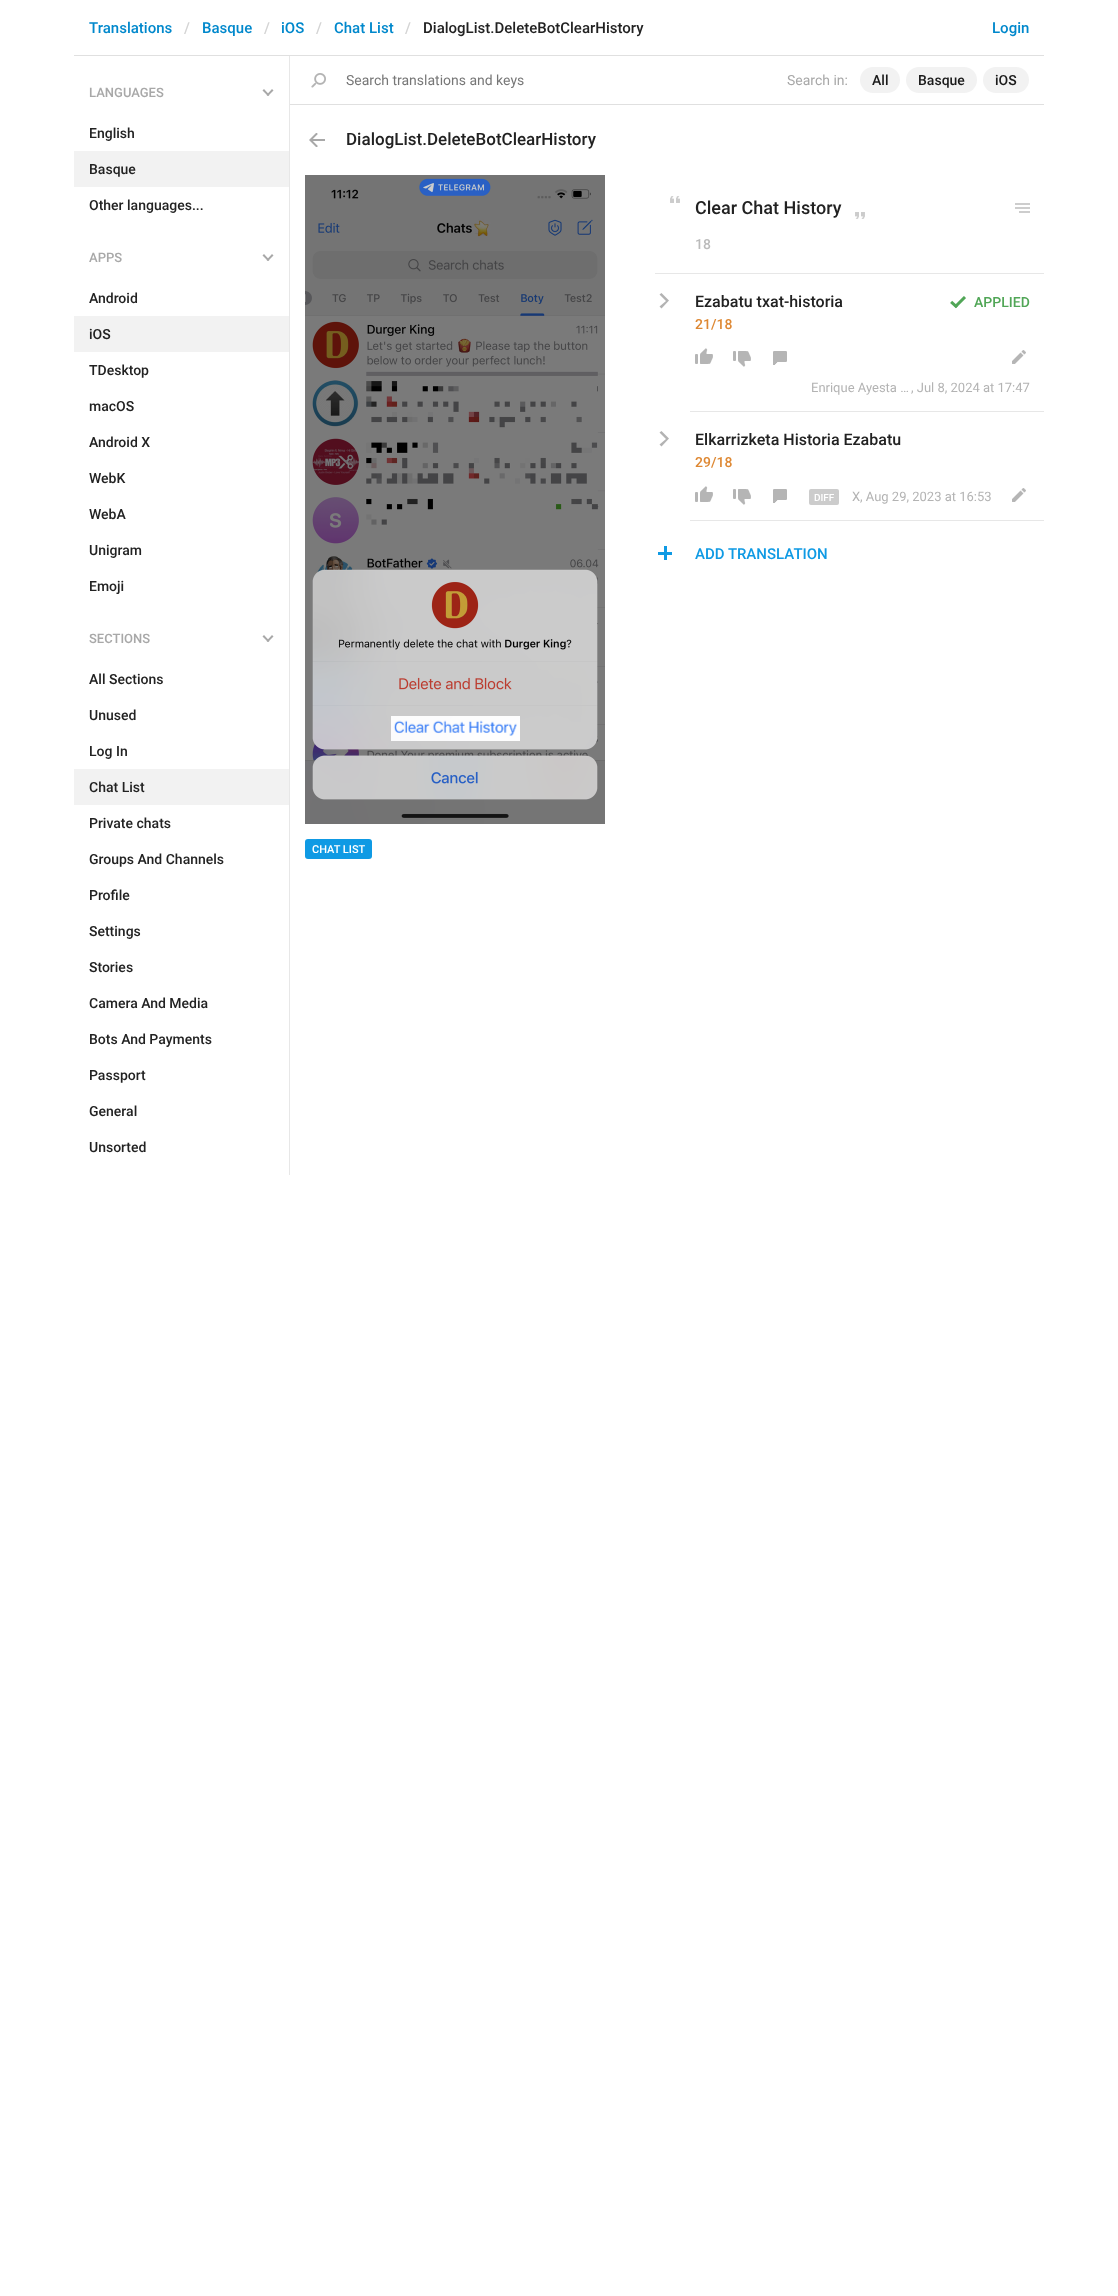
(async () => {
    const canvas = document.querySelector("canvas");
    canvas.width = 1118;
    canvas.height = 2296;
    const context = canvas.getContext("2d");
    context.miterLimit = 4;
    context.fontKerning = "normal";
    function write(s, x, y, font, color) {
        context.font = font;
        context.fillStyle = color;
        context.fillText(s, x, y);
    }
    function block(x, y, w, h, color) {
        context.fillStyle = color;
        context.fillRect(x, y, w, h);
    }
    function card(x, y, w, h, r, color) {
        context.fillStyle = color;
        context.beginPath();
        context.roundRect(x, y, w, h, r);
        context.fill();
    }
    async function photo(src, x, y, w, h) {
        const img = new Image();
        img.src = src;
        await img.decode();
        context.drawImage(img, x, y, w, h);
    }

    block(0, 0, 1118, 2296, "rgb(255, 255, 255)");
    block(74, 55, 970, 1, "rgb(224, 224, 224)");
    write("Translations", 89, 33, "500 15px Roboto", "rgb(0, 136, 204)");
    write("/", 184, 33, "500 15px Roboto", "rgb(212, 212, 212)");
    write("Basque", 202, 33, "500 15px Roboto", "rgb(0, 136, 204)");
    write("/", 264, 33, "500 15px Roboto", "rgb(212, 212, 212)");
    write("iOS", 281, 33, "500 15px Roboto", "rgb(0, 136, 204)");
    write("/", 316, 33, "500 15px Roboto", "rgb(212, 212, 212)");
    write("Chat List", 334, 33, "500 15px Roboto", "rgb(0, 136, 204)");
    write("/", 405, 33, "500 15px Roboto", "rgb(212, 212, 212)");
    write("DialogList.DeleteBotClearHistory", 423, 33, "500 15px Roboto", "rgb(34, 34, 34)");
    write("Login", 992, 33, "500 15px Roboto", "rgb(0, 136, 204)");
    block(290, 104, 754, 1, "rgb(224, 224, 224)");
    await photo("media/1.png", 311, 73, 15, 15);
    write("Search translations and keys", 346, 85, "14px Roboto", "rgb(119, 119, 119)");
    write("Search in:", 787, 85, "14px Roboto", "rgb(168, 168, 168)");
    card(860, 67, 40, 26, 13, "rgb(242, 242, 242)");
    write("All", 872, 85, "500 14px Roboto", "rgb(26, 26, 26)");
    card(906, 67, 71, 26, 13, "rgb(242, 242, 242)");
    write("Basque", 918, 85, "500 14px Roboto", "rgb(26, 26, 26)");
    card(983, 67, 46, 26, 13, "rgb(242, 242, 242)");
    write("iOS", 995, 85, "500 14px Roboto", "rgb(26, 26, 26)");
    write("LANGUAGES", 89, 97, "500 13px Roboto", "rgb(168, 168, 168)");
    context.beginPath();
    context.moveTo(268, 96);
    context.lineTo(262.5, 90.5);
    context.lineTo(264, 89);
    context.lineTo(269.5, 95);
    context.closePath();
    context.fill();
    context.beginPath();
    context.moveTo(268, 96);
    context.lineTo(266.5, 95);
    context.lineTo(272, 89);
    context.lineTo(273.5, 90.5);
    context.closePath();
    context.fill();
    write("English", 89, 138, "500 14px Roboto", "rgb(34, 34, 34)");
    block(74, 151, 215, 36, "rgb(242, 242, 242)");
    write("Basque", 89, 174, "500 14px Roboto", "rgb(34, 34, 34)");
    write("Other languages...", 89, 210, "500 14px Roboto", "rgb(34, 34, 34)");
    write("APPS", 89, 262, "500 13px Roboto", "rgb(168, 168, 168)");
    context.beginPath();
    context.moveTo(268, 261);
    context.lineTo(262.5, 255.5);
    context.lineTo(264, 254);
    context.lineTo(269.5, 260);
    context.closePath();
    context.fill();
    context.beginPath();
    context.moveTo(268, 261);
    context.lineTo(266.5, 260);
    context.lineTo(272, 254);
    context.lineTo(273.5, 255.5);
    context.closePath();
    context.fill();
    write("Android", 89, 303, "500 14px Roboto", "rgb(34, 34, 34)");
    block(74, 316, 215, 36, "rgb(242, 242, 242)");
    write("iOS", 89, 339, "500 14px Roboto", "rgb(34, 34, 34)");
    write("TDesktop", 89, 375, "500 14px Roboto", "rgb(34, 34, 34)");
    write("macOS", 89, 411, "500 14px Roboto", "rgb(34, 34, 34)");
    write("Android X", 89, 447, "500 14px Roboto", "rgb(34, 34, 34)");
    write("WebK", 89, 483, "500 14px Roboto", "rgb(34, 34, 34)");
    write("WebA", 89, 519, "500 14px Roboto", "rgb(34, 34, 34)");
    write("Unigram", 89, 555, "500 14px Roboto", "rgb(34, 34, 34)");
    write("Emoji", 89, 591, "500 14px Roboto", "rgb(34, 34, 34)");
    write("SECTIONS", 89, 643, "500 13px Roboto", "rgb(168, 168, 168)");
    context.beginPath();
    context.moveTo(268, 642);
    context.lineTo(262.5, 636.5);
    context.lineTo(264, 635);
    context.lineTo(269.5, 641);
    context.closePath();
    context.fill();
    context.beginPath();
    context.moveTo(268, 642);
    context.lineTo(266.5, 641);
    context.lineTo(272, 635);
    context.lineTo(273.5, 636.5);
    context.closePath();
    context.fill();
    write("All Sections", 89, 684, "500 14px Roboto", "rgb(34, 34, 34)");
    write("Unused", 89, 720, "500 14px Roboto", "rgb(34, 34, 34)");
    write("Log In", 89, 756, "500 14px Roboto", "rgb(34, 34, 34)");
    block(74, 769, 215, 36, "rgb(242, 242, 242)");
    write("Chat List", 89, 792, "500 14px Roboto", "rgb(34, 34, 34)");
    write("Private chats", 89, 828, "500 14px Roboto", "rgb(34, 34, 34)");
    write("Groups And Channels", 89, 864, "500 14px Roboto", "rgb(34, 34, 34)");
    write("Profile", 89, 900, "500 14px Roboto", "rgb(34, 34, 34)");
    write("Settings", 89, 936, "500 14px Roboto", "rgb(34, 34, 34)");
    write("Stories", 89, 972, "500 14px Roboto", "rgb(34, 34, 34)");
    write("Camera And Media", 89, 1008, "500 14px Roboto", "rgb(34, 34, 34)");
    write("Bots And Payments", 89, 1044, "500 14px Roboto", "rgb(34, 34, 34)");
    write("Passport", 89, 1080, "500 14px Roboto", "rgb(34, 34, 34)");
    write("General", 89, 1116, "500 14px Roboto", "rgb(34, 34, 34)");
    write("Unsorted", 89, 1152, "500 14px Roboto", "rgb(34, 34, 34)");
    block(289, 56, 1, 1119, "rgb(231, 231, 231)");
    await photo("media/2.png", 309, 133, 16, 14);
    write("DialogList.DeleteBotClearHistory", 346, 145, "500 17px Roboto", "rgb(34, 34, 34)");
    await photo("media/3.png", 670, 196, 10, 7);
    write("Clear Chat History", 695, 214, "500 18px Roboto", "rgb(34, 34, 34)");
    await photo("media/4.png", 855, 212, 10, 7);
    await photo("media/5.png", 1015, 203, 15, 10);
    write("18", 695, 249, "500 14px Roboto", "rgb(187, 187, 187)");
    block(655, 273, 389, 1, "rgb(231, 231, 231)");
    context.save();
    context.beginPath();
    context.rect(630, 274, 414, 248);
    context.clip();
    context.beginPath();
    context.moveTo(690, 411);
    context.lineTo(690, 412);
    context.lineTo(1104, 412);
    context.lineTo(1104, 275);
    context.lineTo(1044, 275);
    context.lineTo(1044, 411);
    context.closePath();
    context.fill();
    context.restore();
    context.fillStyle = "rgb(179, 179, 179)";
    context.beginPath();
    context.moveTo(666, 301);
    context.lineTo(659.5, 306.5);
    context.lineTo(661.5, 308.5);
    context.lineTo(669, 300.5);
    context.lineTo(661.5, 293);
    context.lineTo(659.5, 294.5);
    context.closePath();
    context.fill();
    write("Ezabatu txat-historia", 695, 307, "500 16px Roboto", "rgb(34, 34, 34)");
    write("21/18", 695, 329, "500 14px Roboto", "rgb(222, 136, 51)");
    await photo("media/6.png", 695, 348, 18, 16);
    await photo("media/7.png", 733, 351, 18, 16);
    await photo("media/8.png", 773, 351, 14, 14);
    await photo("media/9.png", 1012, 350, 14, 14);
    write("Enrique Ayesta …", 811, 392, "13px Roboto", "rgb(179, 179, 179)");
    write(", Jul 8, 2024 at 17:47", 911, 392, "13px Roboto", "rgb(179, 179, 179)");
    await photo("media/10.png", 950, 296, 16, 13);
    write("APPLIED", 974, 307, "500 14px Roboto", "rgb(81, 166, 87)");
    context.save();
    context.beginPath();
    context.rect(630, 274, 414, 248);
    context.clip();
    context.fillStyle = "rgb(231, 231, 231)";
    context.beginPath();
    context.moveTo(690, 520);
    context.lineTo(690, 521);
    context.lineTo(1104, 521);
    context.lineTo(1104, 413);
    context.lineTo(1044, 413);
    context.lineTo(1044, 520);
    context.closePath();
    context.fill();
    context.restore();
    context.fillStyle = "rgb(179, 179, 179)";
    context.beginPath();
    context.moveTo(666, 439);
    context.lineTo(659.5, 444.5);
    context.lineTo(661.5, 446.5);
    context.lineTo(669, 438.5);
    context.lineTo(661.5, 431);
    context.lineTo(659.5, 432.5);
    context.closePath();
    context.fill();
    write("Elkarrizketa Historia Ezabatu", 695, 445, "500 16px Roboto", "rgb(34, 34, 34)");
    write("29/18", 695, 467, "500 14px Roboto", "rgb(222, 136, 51)");
    await photo("media/6.png", 695, 486, 18, 16);
    await photo("media/7.png", 733, 489, 18, 16);
    await photo("media/8.png", 773, 489, 14, 14);
    card(809, 489, 30, 16, 2, "rgb(204, 204, 204)");
    write("DIFF", 814, 501, "500 10px Roboto", "rgb(255, 255, 255)");
    write("X", 852, 501, "13px Roboto", "rgb(179, 179, 179)");
    write(", Aug 29, 2023 at 16:53", 860, 501, "13px Roboto", "rgb(179, 179, 179)");
    await photo("media/9.png", 1012, 488, 14, 14);
    block(658, 552, 14, 3, "rgb(15, 154, 228)");
    block(664, 546, 3, 14, "rgb(15, 154, 228)");
    write("ADD TRANSLATION", 695, 559, "500 15px Roboto", "rgb(15, 154, 228)");
    await photo("media/11.png", 305, 175, 300, 649);
    await photo("media/12.png", 391, 716, 129, 25);
    card(305, 839, 67, 20, 3, "rgb(15, 154, 228)");
    write("CHAT LIST", 312, 853, "500 11px Roboto", "rgb(255, 255, 255)");
})();
